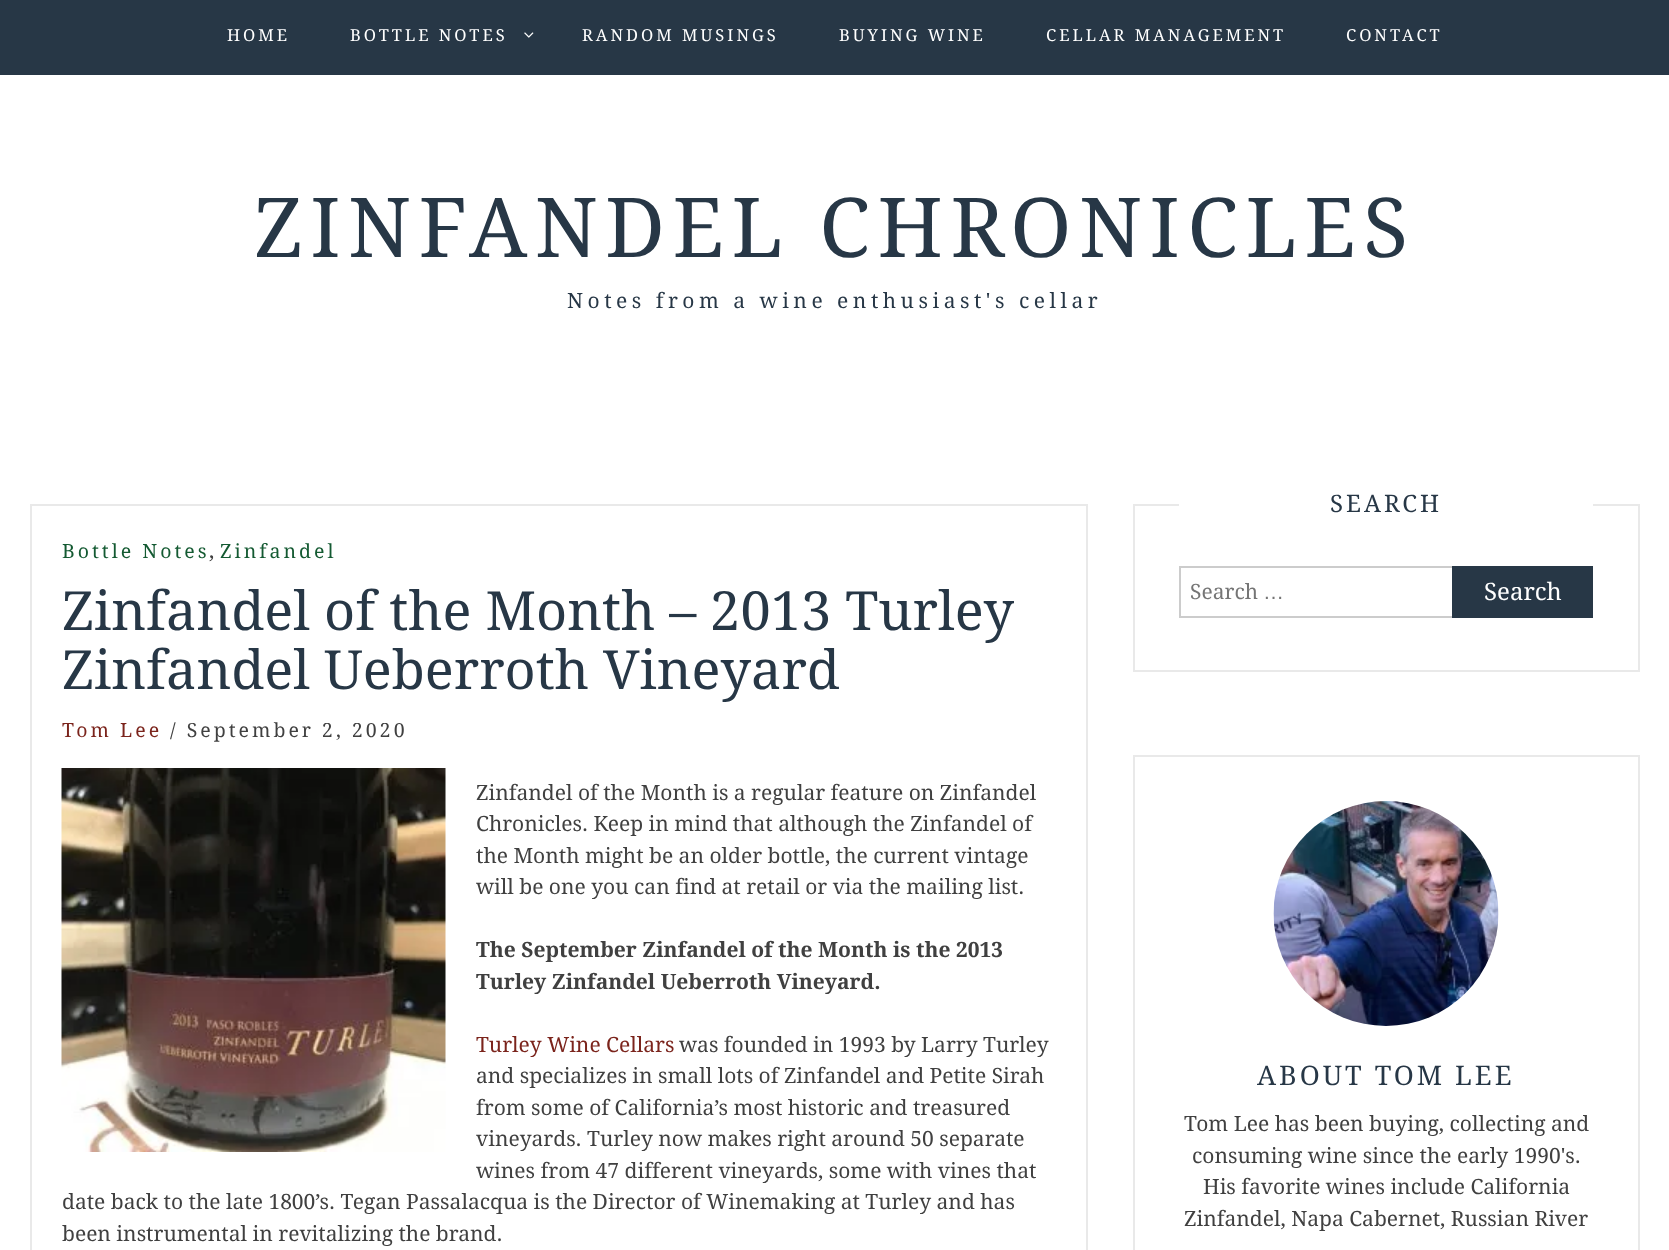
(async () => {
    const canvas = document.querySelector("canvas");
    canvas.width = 1669;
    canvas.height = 1250;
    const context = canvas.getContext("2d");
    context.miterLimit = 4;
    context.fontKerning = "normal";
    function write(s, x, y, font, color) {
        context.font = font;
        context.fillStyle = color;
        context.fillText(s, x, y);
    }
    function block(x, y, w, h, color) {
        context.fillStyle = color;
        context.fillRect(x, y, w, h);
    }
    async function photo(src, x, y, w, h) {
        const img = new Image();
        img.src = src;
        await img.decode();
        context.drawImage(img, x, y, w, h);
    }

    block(0, 0, 1669, 1250, "rgb(255, 255, 255)");
    block(0, 0, 1669, 75, "rgb(39, 55, 70)");
    context.letterSpacing = "3px";
    write("HOME", 227, 41, "16.5px Droid Serif", "rgb(255, 255, 255)");
    write("BOTTLE NOTES", 350, 41, "16.5px Droid Serif", "rgb(255, 255, 255)");
    await photo("media/1.png", 524, 32, 10, 6);
    write("RANDOM MUSINGS", 582, 41, "16.5px Droid Serif", "rgb(255, 255, 255)");
    write("BUYING WINE", 839, 41, "16.5px Droid Serif", "rgb(255, 255, 255)");
    write("CELLAR MANAGEMENT", 1046, 41, "16.5px Droid Serif", "rgb(255, 255, 255)");
    write("CONTACT", 1346, 41, "16.5px Droid Serif", "rgb(255, 255, 255)");
    context.letterSpacing = "7.5px";
    write("ZINFANDEL CHRONICLES", 254, 257, "82.5px Droid Serif", "rgb(39, 55, 70)");
    context.letterSpacing = "4.5px";
    write("Notes from a wine enthusiast's cellar", 567, 308, "21px Droid Serif", "rgb(39, 55, 70)");
    context.strokeStyle = "rgb(233, 233, 233)";
    context.lineWidth = 2;
    context.strokeRect(31, 505, 1056, 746);
    context.letterSpacing = "3px";
    write("Bottle Notes", 62, 558, "19.5px Droid Serif", "rgb(20, 90, 50)");
    context.letterSpacing = "0px";
    write(",", 209, 558, "21px Droid Serif", "rgb(64, 64, 64)");
    context.letterSpacing = "3px";
    write("Zinfandel", 220, 558, "19.5px Droid Serif", "rgb(20, 90, 50)");
    context.letterSpacing = "0px";
    write("Zinfandel of the Month – 2013 Turley", 62, 630, "54px Droid Serif", "rgb(39, 55, 70)");
    write("Zinfandel Ueberroth Vineyard", 62, 689, "54px Droid Serif", "rgb(39, 55, 70)");
    context.letterSpacing = "3px";
    write("Tom Lee", 62, 737, "19.5px Droid Serif", "rgb(123, 36, 28)");
    write("/ September 2, 2020", 170, 737, "19.5px Droid Serif", "rgb(64, 64, 64)");
    await photo("media/2.png", 61, 768, 385, 384);
    context.letterSpacing = "0px";
    write("Zinfandel of the Month is a regular feature on Zinfandel", 476, 800, "21px Droid Serif", "rgb(64, 64, 64)");
    write("Chronicles. Keep in mind that although the Zinfandel of", 476, 831, "21px Droid Serif", "rgb(64, 64, 64)");
    write("the Month might be an older bottle, the current vintage", 476, 863, "21px Droid Serif", "rgb(64, 64, 64)");
    write("will be one you can find at retail or via the mailing list.", 476, 894, "21px Droid Serif", "rgb(64, 64, 64)");
    write("The September Zinfandel of the Month is the 2013", 476, 957, "bold 21px Droid Serif", "rgb(64, 64, 64)");
    write("Turley Zinfandel Ueberroth Vineyard.", 476, 989, "bold 21px Droid Serif", "rgb(64, 64, 64)");
    write("Turley Wine Cellars", 476, 1052, "21px Droid Serif", "rgb(123, 36, 28)");
    write("was founded in 1993 by Larry Turley", 679, 1052, "21px Droid Serif", "rgb(64, 64, 64)");
    write("and specializes in small lots of Zinfandel and Petite Sirah", 476, 1083, "21px Droid Serif", "rgb(64, 64, 64)");
    write("from some of California’s most historic and treasured", 476, 1115, "21px Droid Serif", "rgb(64, 64, 64)");
    write("vineyards. Turley now makes right around 50 separate", 476, 1146, "21px Droid Serif", "rgb(64, 64, 64)");
    write("wines from 47 different vineyards, some with vines that", 476, 1178, "21px Droid Serif", "rgb(64, 64, 64)");
    write("date back to the late 1800’s. Tegan Passalacqua is the Director of Winemaking at Turley and has", 62, 1209, "21px Droid Serif", "rgb(64, 64, 64)");
    write("been instrumental in revitalizing the brand.", 62, 1241, "21px Droid Serif", "rgb(64, 64, 64)");
    context.strokeRect(1134, 505, 505, 166);
    block(1179, 504, 414, 2, "rgb(255, 255, 255)");
    context.letterSpacing = "3px";
    write("SEARCH", 1330, 512, "24px Droid Serif", "rgb(39, 55, 70)");
    context.strokeStyle = "rgb(204, 204, 204)";
    context.strokeRect(1180, 567, 412, 50);
    context.letterSpacing = "0px";
    write("Search", 1190, 599, "21px Droid Serif", "rgb(117, 117, 117)");
    write("…", 1263, 599, "21px Liberation Sans", "rgb(117, 117, 117)");
    block(1452, 566, 141, 52, "rgb(39, 55, 70)");
    write("Search", 1484, 600, "24px Droid Serif", "rgb(255, 255, 255)");
    context.strokeStyle = "rgb(233, 233, 233)";
    context.strokeRect(1134, 756, 505, 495);
    await photo("media/3.png", 1273, 801, 226, 225);
    context.letterSpacing = "3px";
    write("ABOUT TOM LEE", 1257, 1085, "27px Droid Serif", "rgb(39, 55, 70)");
    context.letterSpacing = "0px";
    write("Tom Lee has been buying, collecting and", 1184, 1131, "21px Droid Serif", "rgb(64, 64, 64)");
    write("consuming wine since the early 1990's.", 1192, 1163, "21px Droid Serif", "rgb(64, 64, 64)");
    write("His favorite wines include California", 1203, 1194, "21px Droid Serif", "rgb(64, 64, 64)");
    write("Zinfandel, Napa Cabernet, Russian River", 1184, 1226, "21px Droid Serif", "rgb(64, 64, 64)");
})();
